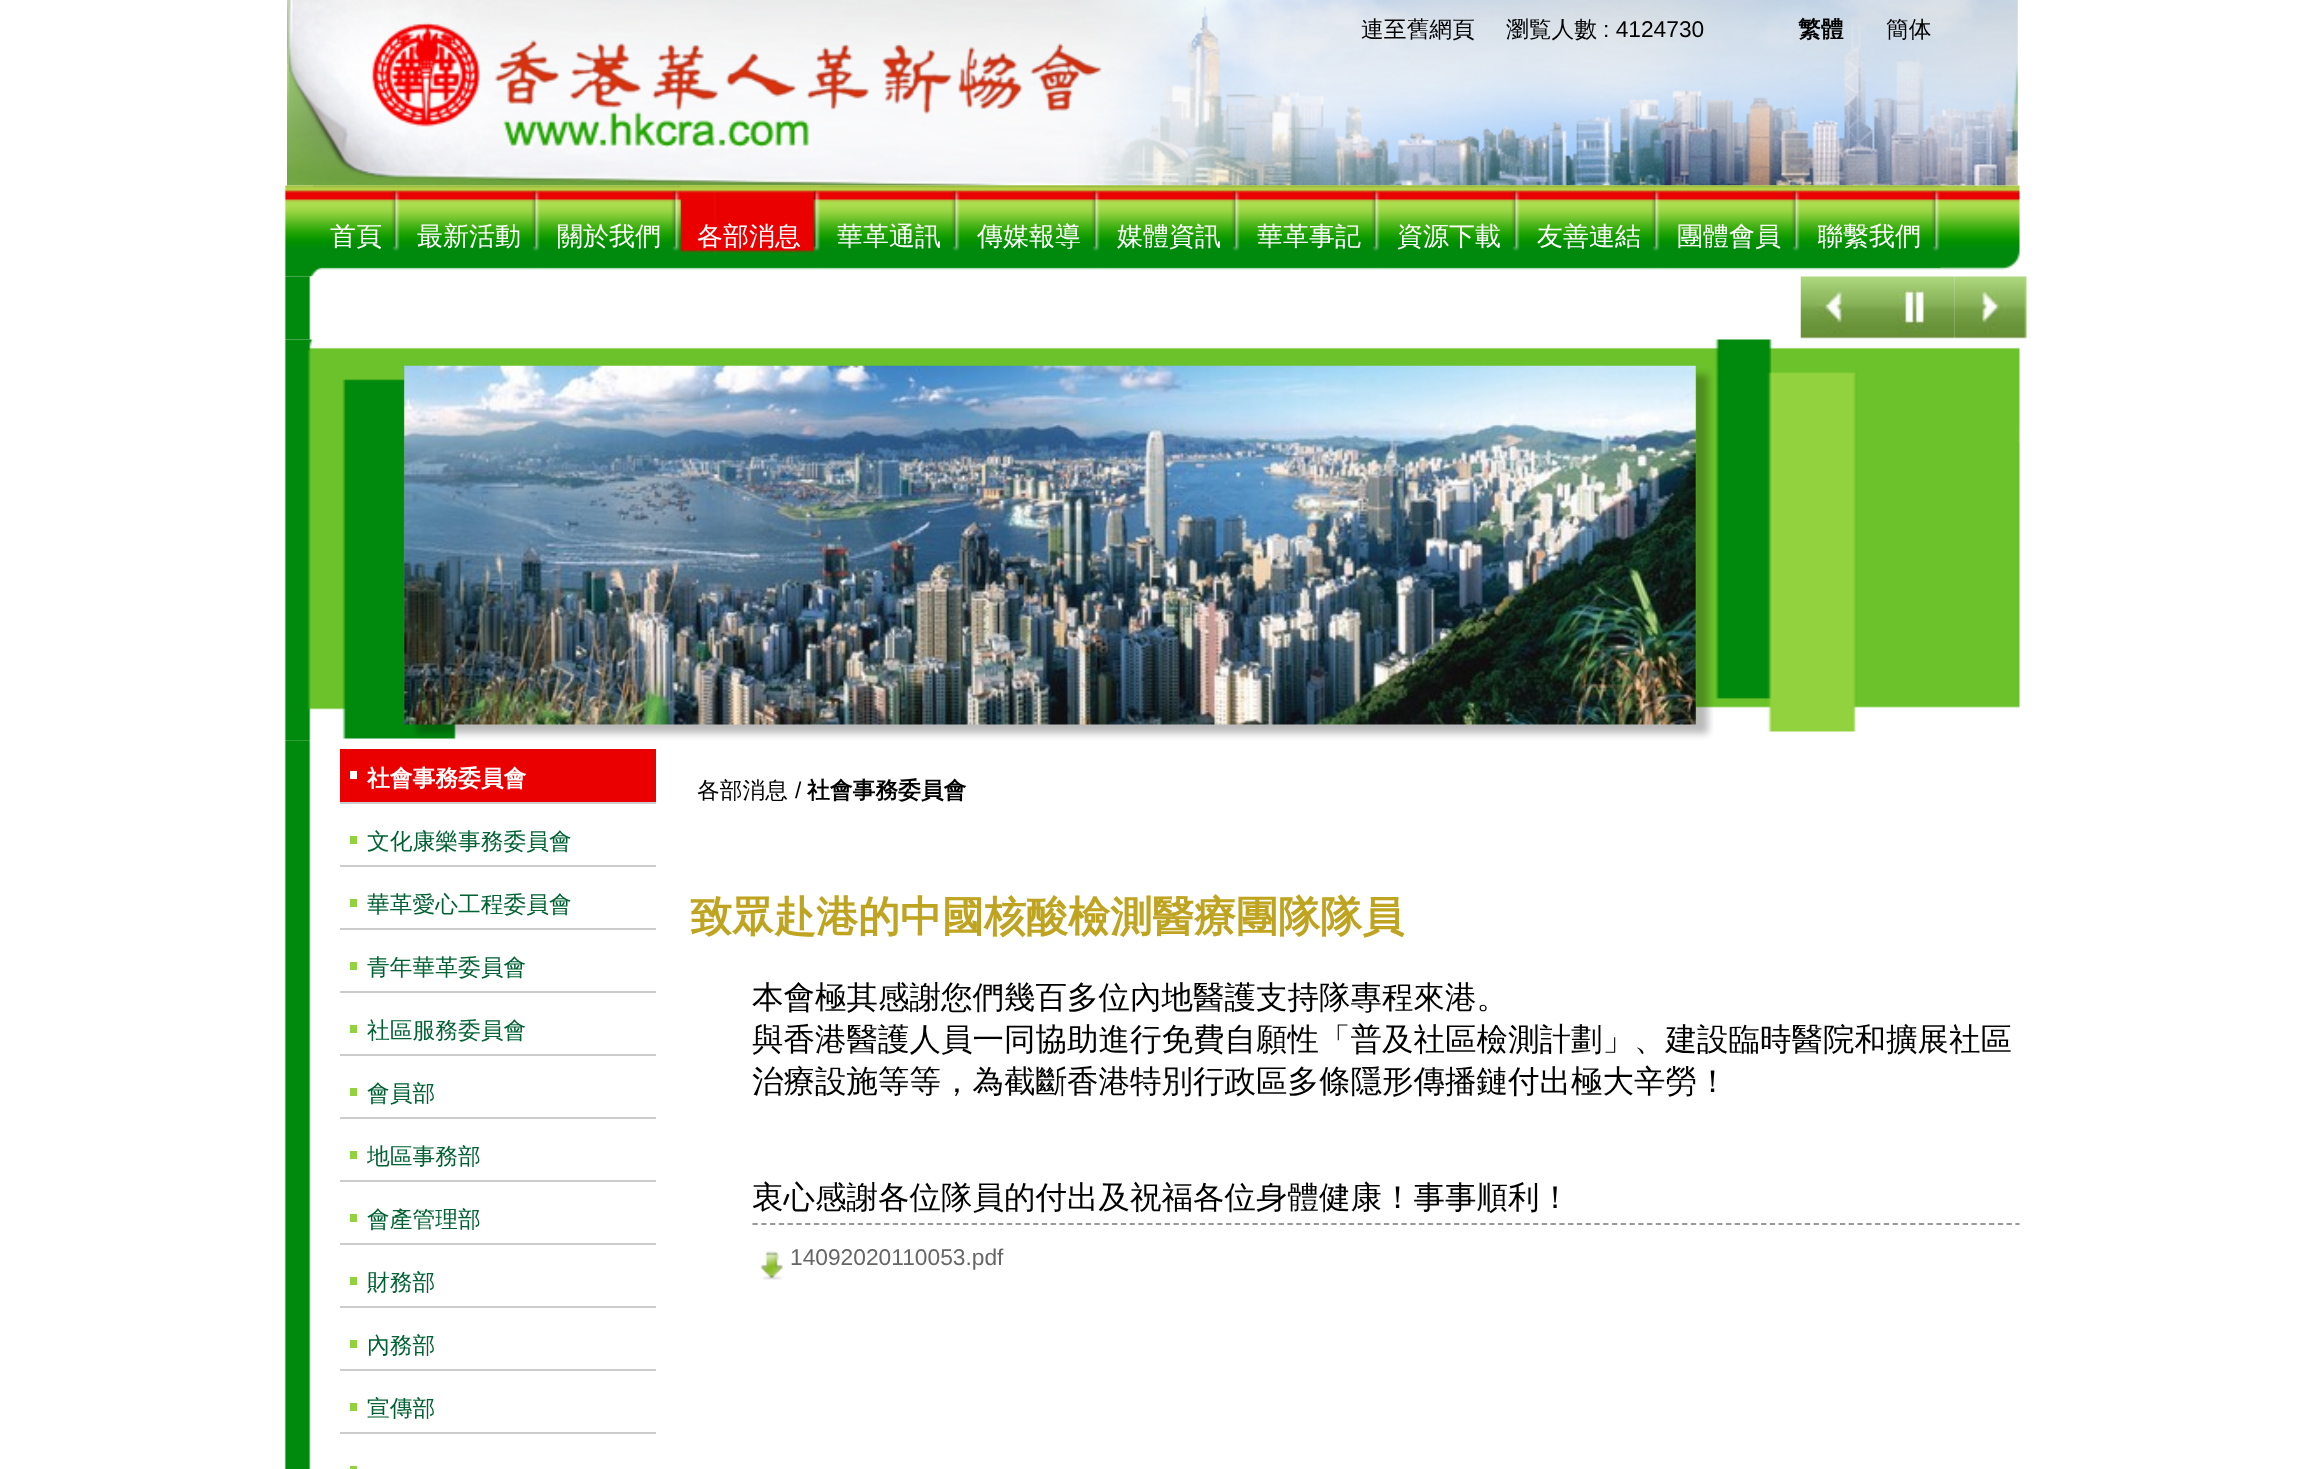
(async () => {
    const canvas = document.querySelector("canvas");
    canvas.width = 2303;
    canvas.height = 1469;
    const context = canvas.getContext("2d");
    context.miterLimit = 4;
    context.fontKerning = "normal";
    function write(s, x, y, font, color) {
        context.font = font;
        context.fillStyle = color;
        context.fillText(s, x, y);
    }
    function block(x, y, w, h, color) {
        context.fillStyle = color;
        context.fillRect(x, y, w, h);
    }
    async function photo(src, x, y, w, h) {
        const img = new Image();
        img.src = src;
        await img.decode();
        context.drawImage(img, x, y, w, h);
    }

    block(0, 0, 2303, 1469, "rgb(255, 255, 255)");
    await photo("media/1.png", 287, 0, 1731, 186);
    write("連至舊網頁", 1361, 37, "500 22.75px WenQuanYi Zen Hei", "rgb(0, 0, 0)");
    write("瀏覧人數", 1506, 37, "500 22.75px WenQuanYi Zen Hei", "rgb(0, 0, 0)");
    write(": 4124730", 1603, 37, "22.75px Liberation Sans", "rgb(0, 0, 0)");
    write("繁體", 1798, 37, "bold 22.75px WenQuanYi Zen Hei", "rgb(0, 0, 0)");
    write("簡体", 1886, 37, "500 22.75px WenQuanYi Zen Hei", "rgb(0, 0, 0)");
    await photo("media/2.png", 284, 185, 1736, 92);
    await photo("media/3.png", 313, 185, 88, 83);
    write("首頁", 330, 245, "500 26px WenQuanYi Zen Hei", "rgb(255, 255, 255)");
    await photo("media/4.png", 400, 185, 141, 83);
    write("最新活動", 417, 245, "500 26px WenQuanYi Zen Hei", "rgb(255, 255, 255)");
    await photo("media/5.png", 540, 185, 141, 83);
    write("關於我們", 557, 245, "500 26px WenQuanYi Zen Hei", "rgb(255, 255, 255)");
    await photo("media/6.png", 680, 185, 141, 83);
    write("各部消息", 697, 245, "500 26px WenQuanYi Zen Hei", "rgb(255, 255, 255)");
    await photo("media/7.png", 820, 185, 141, 83);
    write("華革通訊", 837, 245, "500 26px WenQuanYi Zen Hei", "rgb(255, 255, 255)");
    await photo("media/8.png", 960, 185, 141, 83);
    write("傳媒報導", 977, 245, "500 26px WenQuanYi Zen Hei", "rgb(255, 255, 255)");
    await photo("media/9.png", 1100, 185, 141, 83);
    write("媒體資訊", 1117, 245, "500 26px WenQuanYi Zen Hei", "rgb(255, 255, 255)");
    await photo("media/10.png", 1240, 185, 141, 83);
    write("華革事記", 1257, 245, "500 26px WenQuanYi Zen Hei", "rgb(255, 255, 255)");
    await photo("media/11.png", 1380, 185, 141, 83);
    write("資源下載", 1397, 245, "500 26px WenQuanYi Zen Hei", "rgb(255, 255, 255)");
    await photo("media/12.png", 1520, 185, 141, 83);
    write("友善連結", 1537, 245, "500 26px WenQuanYi Zen Hei", "rgb(255, 255, 255)");
    await photo("media/13.png", 1660, 185, 141, 83);
    write("團體會員", 1677, 245, "500 26px WenQuanYi Zen Hei", "rgb(255, 255, 255)");
    await photo("media/14.png", 1800, 185, 141, 83);
    context.save();
    context.beginPath();
    context.rect(1818, 186, 105, 68);
    context.clip();
    write("聯繫我們", 1817, 245, "500 26px WenQuanYi Zen Hei", "rgb(255, 255, 255)");
    context.restore();
    await photo("media/15.png", 284, 276, 30, 64);
    await photo("media/19.png", 284, 339, 1736, 402);
    await photo("media/16.png", 1800, 276, 69, 64);
    await photo("media/17.png", 1869, 276, 86, 64);
    await photo("media/18.png", 1954, 276, 73, 64);
    await photo("media/20.png", 404, 365, 1292, 360);
    await photo("media/21.png", 284, 740, 28, 729);
    block(340, 749, 316, 53, "rgb(234, 0, 1)");
    block(350, 771, 7, 8, "rgb(255, 255, 255)");
    write("社會事務委員會", 367, 786, "bold 22.75px WenQuanYi Zen Hei", "rgb(255, 255, 255)");
    block(340, 802, 316, 2, "rgb(204, 204, 204)");
    block(350, 836, 7, 8, "rgb(146, 210, 63)");
    write("文化康樂事務委員會", 367, 849, "500 22.75px WenQuanYi Zen Hei", "rgb(0, 97, 50)");
    block(340, 865, 316, 2, "rgb(204, 204, 204)");
    block(350, 899, 7, 8, "rgb(146, 210, 63)");
    write("華革愛心工程委員會", 367, 912, "500 22.75px WenQuanYi Zen Hei", "rgb(0, 97, 50)");
    block(340, 928, 316, 2, "rgb(204, 204, 204)");
    block(350, 962, 7, 8, "rgb(146, 210, 63)");
    write("青年華革委員會", 367, 975, "500 22.75px WenQuanYi Zen Hei", "rgb(0, 97, 50)");
    block(340, 991, 316, 2, "rgb(204, 204, 204)");
    block(350, 1025, 7, 8, "rgb(146, 210, 63)");
    write("社區服務委員會", 367, 1038, "500 22.75px WenQuanYi Zen Hei", "rgb(0, 97, 50)");
    block(340, 1054, 316, 2, "rgb(204, 204, 204)");
    block(350, 1088, 7, 8, "rgb(146, 210, 63)");
    write("會員部", 367, 1101, "500 22.75px WenQuanYi Zen Hei", "rgb(0, 97, 50)");
    block(340, 1117, 316, 2, "rgb(204, 204, 204)");
    block(350, 1151, 7, 8, "rgb(146, 210, 63)");
    write("地區事務部", 367, 1164, "500 22.75px WenQuanYi Zen Hei", "rgb(0, 97, 50)");
    block(340, 1180, 316, 2, "rgb(204, 204, 204)");
    block(350, 1214, 7, 8, "rgb(146, 210, 63)");
    write("會產管理部", 367, 1227, "500 22.75px WenQuanYi Zen Hei", "rgb(0, 97, 50)");
    block(340, 1243, 316, 2, "rgb(204, 204, 204)");
    block(350, 1277, 7, 8, "rgb(146, 210, 63)");
    write("財務部", 367, 1290, "500 22.75px WenQuanYi Zen Hei", "rgb(0, 97, 50)");
    block(340, 1306, 316, 2, "rgb(204, 204, 204)");
    block(350, 1340, 7, 8, "rgb(146, 210, 63)");
    write("內務部", 367, 1353, "500 22.75px WenQuanYi Zen Hei", "rgb(0, 97, 50)");
    block(340, 1369, 316, 2, "rgb(204, 204, 204)");
    block(350, 1403, 7, 8, "rgb(146, 210, 63)");
    write("宣傳部", 367, 1416, "500 22.75px WenQuanYi Zen Hei", "rgb(0, 97, 50)");
    block(340, 1432, 316, 2, "rgb(204, 204, 204)");
    block(350, 1466, 7, 3, "rgb(146, 210, 63)");
    write("各部消息", 697, 798, "500 22.75px WenQuanYi Zen Hei", "rgb(0, 0, 0)");
    write("/", 795, 798, "22.75px Liberation Sans", "rgb(0, 0, 0)");
    write("社會事務委員會", 807, 798, "bold 22.75px WenQuanYi Zen Hei", "rgb(0, 0, 0)");
    write("致眾赴港的中國核酸檢測醫療團隊隊員", 690, 931, "bold 42px WenQuanYi Zen Hei", "rgb(191, 164, 33)");
    write("本會極其感謝您們幾百多位內地醫護支持隊專程來港。", 752, 1008, "500 31.5px WenQuanYi Zen Hei", "rgb(0, 0, 0)");
    write("與香港醫護人員一同協助進行免費自願性「普及社區檢測計劃」、建設臨時醫院和擴展社區", 752, 1050, "500 31.5px WenQuanYi Zen Hei", "rgb(0, 0, 0)");
    write("治療設施等等，為截斷香港特別行政區多條隱形傳播鏈付出極大辛勞！", 752, 1092, "500 31.5px WenQuanYi Zen Hei", "rgb(0, 0, 0)");
    write("衷心感謝各位隊員的付出及祝福各位身體健康！事事順利！", 752, 1208, "500 31.5px WenQuanYi Zen Hei", "rgb(0, 0, 0)");
    context.beginPath();
    context.moveTo(752.5, 1224);
    context.lineTo(2019.5, 1224);
    context.strokeStyle = "rgb(153, 153, 153)";
    context.lineWidth = 1.8;
    context.setLineDash([5.25, 3.52]);
    context.stroke();
    await photo("media/22.png", 760, 1251, 23, 29);
    write("14092020110053.pdf", 790, 1265, "22.75px Liberation Sans", "rgb(102, 102, 102)");
})();
